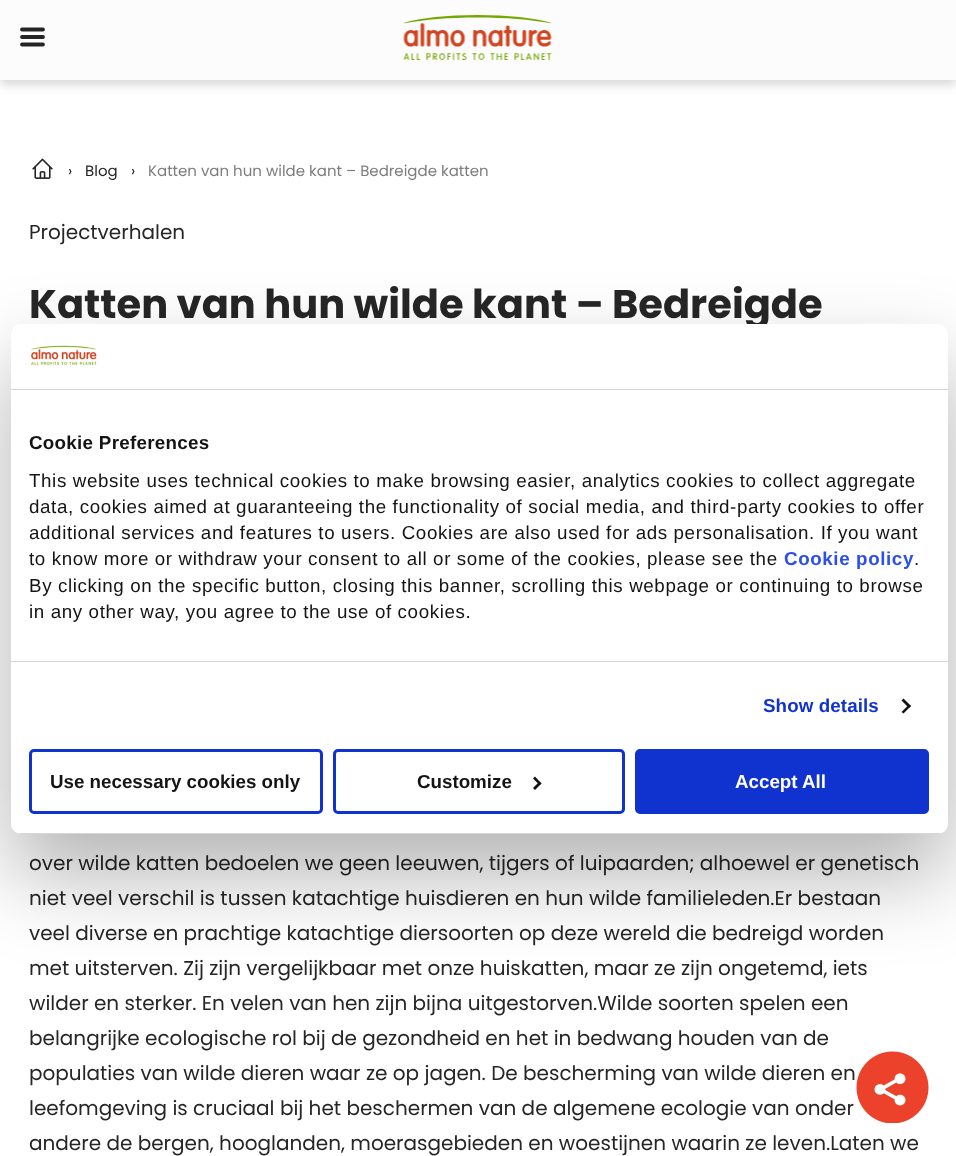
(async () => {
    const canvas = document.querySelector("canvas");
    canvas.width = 956;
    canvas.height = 1156;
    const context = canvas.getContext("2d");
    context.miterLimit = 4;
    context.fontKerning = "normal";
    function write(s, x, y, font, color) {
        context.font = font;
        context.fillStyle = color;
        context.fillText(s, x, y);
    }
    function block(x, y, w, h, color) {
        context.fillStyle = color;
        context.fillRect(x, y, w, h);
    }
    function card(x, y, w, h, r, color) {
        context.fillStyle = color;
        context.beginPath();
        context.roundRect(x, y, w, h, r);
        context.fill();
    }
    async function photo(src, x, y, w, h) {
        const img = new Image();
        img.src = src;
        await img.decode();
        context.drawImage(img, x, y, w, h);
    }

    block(0, 0, 956, 1156, "rgb(255, 255, 255)");
    context.fillStyle = "rgba(0, 0, 0, 0.15)";
    context.filter = "blur(5px)";
    context.beginPath();
    context.rect(0, 5, 956, 80);
    context.fill();
    context.filter = "none";
    block(0, 0, 956, 80, "rgb(252, 252, 252)");
    context.beginPath();
    context.moveTo(22, 29.5);
    context.lineTo(43, 29.5);
    context.moveTo(22, 37);
    context.lineTo(43, 37);
    context.moveTo(22, 44.5);
    context.lineTo(43, 44.5);
    context.strokeStyle = "rgb(37, 37, 37)";
    context.lineWidth = 3.8;
    context.lineCap = "round";
    context.stroke();
    await photo("media/1.png", 403, 15, 149, 45);
    await photo("media/2.png", 32, 158, 21, 21);
    write("›", 68, 176, "15px Poppins", "rgb(38, 38, 38)");
    write("Blog", 85, 176, "15px Poppins", "rgb(38, 38, 38)");
    write("›", 131, 176, "15px Poppins", "rgb(38, 38, 38)");
    write("Katten van hun wilde kant – Bedreigde katten", 148, 176, "15px Poppins", "rgb(125, 125, 125)");
    write("Projectverhalen", 29, 239, "20px Poppins", "rgb(38, 38, 38)");
    write("Katten van hun wilde kant – Bedreigde", 29, 318, "bold 40px Poppins", "rgb(38, 38, 38)");
    write("over wilde katten bedoelen we geen leeuwen, tijgers of luipaarden; alhoewel er genetisch", 29, 870, "20px Poppins", "rgb(38, 38, 38)");
    write("niet veel verschil is tussen katachtige huisdieren en hun wilde familieleden.Er bestaan", 29, 905, "20px Poppins", "rgb(38, 38, 38)");
    write("veel diverse en prachtige katachtige diersoorten op deze wereld die bedreigd worden", 29, 940, "20px Poppins", "rgb(38, 38, 38)");
    write("met uitsterven. Zij zijn vergelijkbaar met onze huiskatten, maar ze zijn ongetemd, iets", 29, 975, "20px Poppins", "rgb(38, 38, 38)");
    write("wilder en sterker. En velen van hen zijn bijna uitgestorven.Wilde soorten spelen een", 29, 1010, "20px Poppins", "rgb(38, 38, 38)");
    write("belangrijke ecologische rol bij de gezondheid en het in bedwang houden van de", 29, 1045, "20px Poppins", "rgb(38, 38, 38)");
    write("populaties van wilde dieren waar ze op jagen. De bescherming van wilde dieren en", 29, 1080, "20px Poppins", "rgb(38, 38, 38)");
    write("leefomgeving is cruciaal bij het beschermen van de algemene ecologie van onder", 29, 1115, "20px Poppins", "rgb(38, 38, 38)");
    write("andere de bergen, hooglanden, moerasgebieden en woestijnen waarin ze leven.Laten we", 29, 1150, "20px Poppins", "rgb(38, 38, 38)");
    await photo("media/3.png", 856, 1051, 73, 72);
    context.fillStyle = "rgba(0, 0, 0, 0.3)";
    context.filter = "blur(42.5px)";
    context.beginPath();
    context.roundRect(11, 364, 937, 510, 10);
    context.fill();
    context.filter = "none";
    card(11, 324, 937, 510, 10, "rgb(255, 255, 255)");
    block(11, 389, 937, 1, "rgb(214, 214, 214)");
    await photo("media/4.png", 31, 345, 66, 21);
    block(11, 661, 937, 1, "rgb(214, 214, 214)");
    context.letterSpacing = "0.3px";
    write("Cookie Preferences", 29, 449, "bold 18.75px Liberation Sans", "rgb(20, 20, 20)");
    context.letterSpacing = "0.62px";
    write("This website uses technical cookies to make browsing easier, analytics cookies to collect aggregate", 29, 487, "18.75px Liberation Sans", "rgb(20, 20, 20)");
    write("data, cookies aimed at guaranteeing the functionality of social media, and third-party cookies to offer", 29, 513, "18.75px Liberation Sans", "rgb(20, 20, 20)");
    write("additional services and features to users. Cookies are also used for ads personalisation. If you want", 29, 539, "18.75px Liberation Sans", "rgb(20, 20, 20)");
    write("to know more or withdraw your consent to all or some of the cookies, please see the", 29, 565, "18.75px Liberation Sans", "rgb(20, 20, 20)");
    write("Cookie policy", 784, 565, "bold 18.75px Liberation Sans", "rgb(42, 78, 239)");
    write(".", 914, 565, "18.75px Liberation Sans", "rgb(20, 20, 20)");
    write("By clicking on the specific button, closing this banner, scrolling this webpage or continuing to browse", 29, 592, "18.75px Liberation Sans", "rgb(20, 20, 20)");
    write("in any other way, you agree to the use of cookies.", 29, 618, "18.75px Liberation Sans", "rgb(20, 20, 20)");
    context.letterSpacing = "0.1px";
    write("Show details", 763, 712, "bold 18.75px Liberation Sans", "rgb(16, 50, 207)");
    context.fillStyle = "rgb(20, 20, 20)";
    context.beginPath();
    context.moveTo(903.5, 698.5);
    context.lineTo(911, 706);
    context.lineTo(909, 708);
    context.lineTo(901.5, 700.5);
    context.closePath();
    context.fill();
    context.beginPath();
    context.moveTo(909, 704.5);
    context.lineTo(911, 706);
    context.lineTo(903.5, 713.5);
    context.lineTo(901.5, 712);
    context.closePath();
    context.fill();
    context.save();
    context.beginPath();
    context.roundRect(11, 324, 937, 510, 10);
    context.clip();
    block(11, 833, 937, 1, "rgb(214, 214, 214)");
    context.restore();
    context.beginPath();
    context.roundRect(30.5, 750.5, 291, 62, 3.5);
    context.strokeStyle = "rgb(16, 50, 207)";
    context.lineWidth = 3;
    context.stroke();
    context.letterSpacing = "0px";
    write("Use necessary cookies only", 50, 788, "bold 18.75px Liberation Sans", "rgb(20, 20, 20)");
    context.beginPath();
    context.roundRect(334.5, 750.5, 289, 62, 3.5);
    context.stroke();
    write("Customize", 417, 788, "bold 18.75px Liberation Sans", "rgb(20, 20, 20)");
    context.beginPath();
    context.moveTo(535, 776.5);
    context.lineTo(541.5, 783.5);
    context.lineTo(539.5, 785);
    context.lineTo(533, 778.5);
    context.closePath();
    context.fill();
    context.beginPath();
    context.moveTo(539.5, 781.5);
    context.lineTo(541.5, 783.5);
    context.lineTo(535, 790);
    context.lineTo(533, 788);
    context.closePath();
    context.fill();
    context.fillStyle = "rgb(16, 50, 207)";
    context.beginPath();
    context.roundRect(636.5, 750.5, 291, 62, 3.5);
    context.fill();
    context.stroke();
    write("Accept All", 735, 788, "bold 18.75px Liberation Sans", "rgb(255, 255, 255)");
})();
